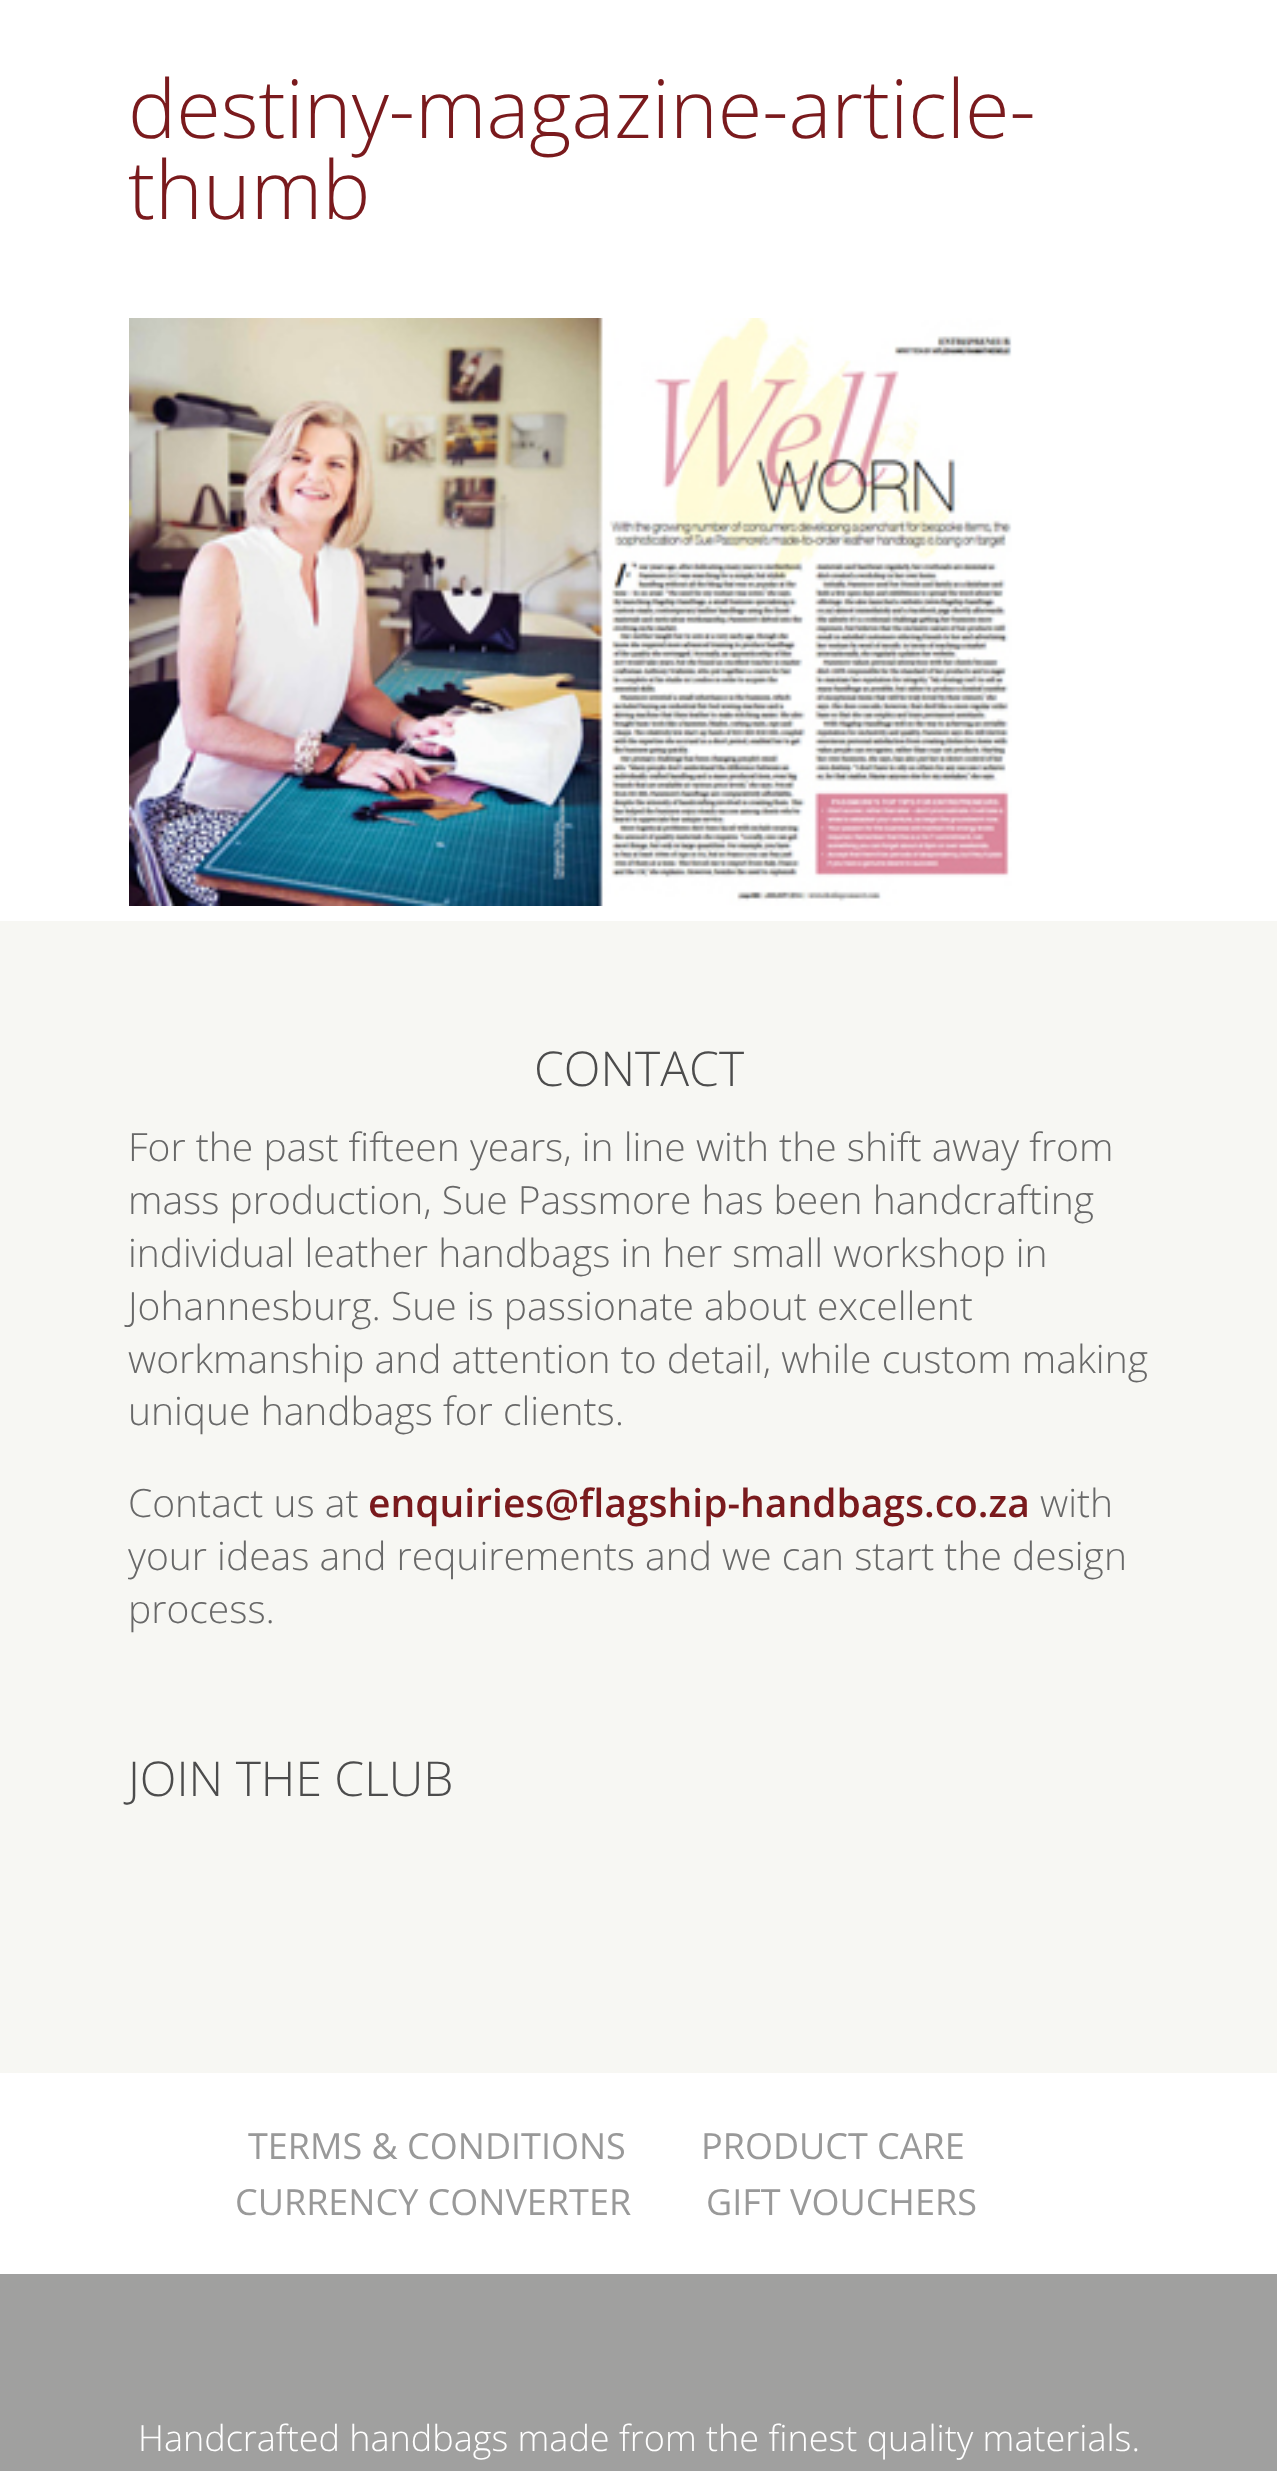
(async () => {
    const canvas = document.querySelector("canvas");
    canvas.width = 1277;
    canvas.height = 2471;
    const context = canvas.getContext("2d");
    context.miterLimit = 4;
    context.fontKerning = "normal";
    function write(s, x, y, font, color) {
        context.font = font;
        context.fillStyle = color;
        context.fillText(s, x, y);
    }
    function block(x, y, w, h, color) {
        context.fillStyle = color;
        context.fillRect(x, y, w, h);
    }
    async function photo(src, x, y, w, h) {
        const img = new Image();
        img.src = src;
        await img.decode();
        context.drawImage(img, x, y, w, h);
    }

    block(0, 0, 1277, 2471, "rgb(255, 255, 255)");
    write("destiny-magazine-article-", 128, 138, "300 81px Open Sans", "rgb(122, 26, 29)");
    write("thumb", 128, 219, "300 81px Open Sans", "rgb(122, 26, 29)");
    await photo("media/1.png", 129, 318, 883, 588);
    block(0, 921, 1277, 1152, "rgb(247, 247, 243)");
    write("CONTACT", 534, 1086, "300 48px Open Sans", "rgb(76, 76, 76)");
    write("For the past fifteen years, in line with the shift away from", 128, 1161, "300 39px Open Sans", "rgb(104, 104, 104)");
    write("mass production, Sue Passmore has been handcrafting", 128, 1214, "300 39px Open Sans", "rgb(104, 104, 104)");
    write("individual leather handbags in her small workshop in", 128, 1267, "300 39px Open Sans", "rgb(104, 104, 104)");
    write("Johannesburg. Sue is passionate about excellent", 128, 1320, "300 39px Open Sans", "rgb(104, 104, 104)");
    write("workmanship and attention to detail, while custom making", 128, 1373, "300 39px Open Sans", "rgb(104, 104, 104)");
    write("unique handbags for clients.", 128, 1425, "300 39px Open Sans", "rgb(104, 104, 104)");
    write("Contact us at", 128, 1517, "300 39px Open Sans", "rgb(104, 104, 104)");
    write("enquiries@flagship-handbags.co.za", 368, 1517, "600 39px Open Sans", "rgb(122, 26, 29)");
    write("with", 1040, 1517, "300 39px Open Sans", "rgb(104, 104, 104)");
    write("your ideas and requirements and we can start the design", 128, 1570, "300 39px Open Sans", "rgb(104, 104, 104)");
    write("process.", 128, 1623, "300 39px Open Sans", "rgb(104, 104, 104)");
    write("JOIN THE CLUB", 128, 1796, "300 48px Open Sans", "rgb(76, 76, 76)");
    write("TERMS & CONDITIONS", 248, 2159, "36px Open Sans", "rgb(153, 153, 153)");
    write("PRODUCT CARE", 701, 2159, "36px Open Sans", "rgb(153, 153, 153)");
    write("CURRENCY CONVERTER", 235, 2215, "36px Open Sans", "rgb(153, 153, 153)");
    write("GIFT VOUCHERS", 706, 2215, "36px Open Sans", "rgb(153, 153, 153)");
    block(0, 2274, 1277, 197, "rgb(160, 160, 159)");
    write("Handcrafted handbags made from the finest quality materials.", 138, 2451, "300 36px Open Sans", "rgb(255, 255, 255)");
})();
